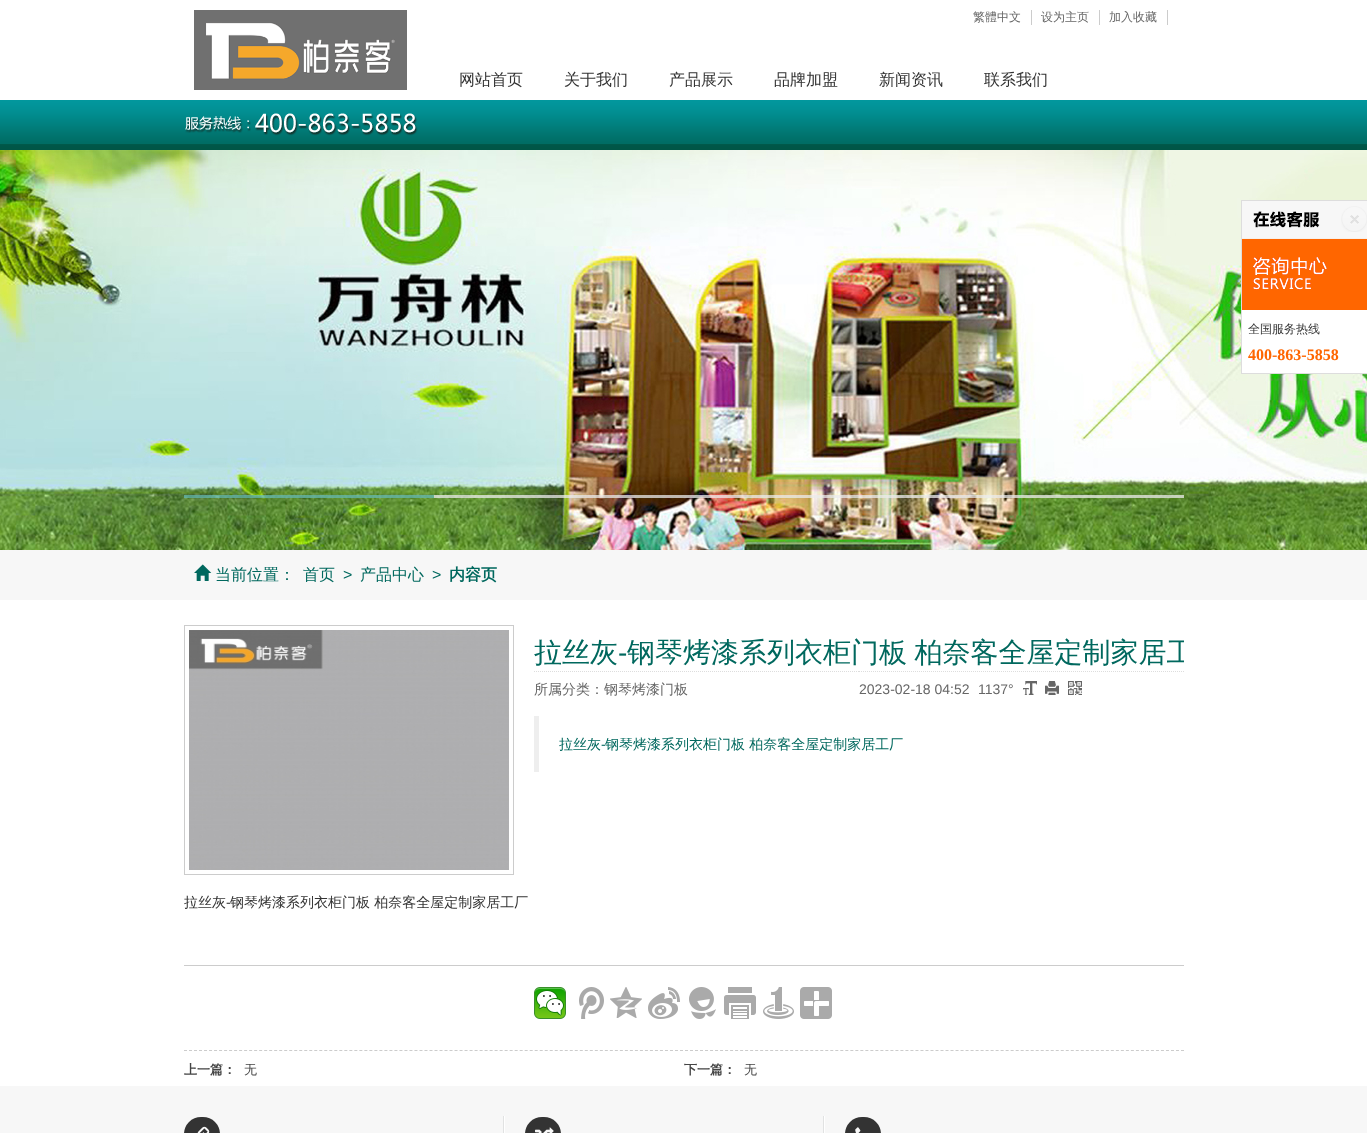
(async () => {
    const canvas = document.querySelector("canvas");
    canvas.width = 1367;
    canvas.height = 1133;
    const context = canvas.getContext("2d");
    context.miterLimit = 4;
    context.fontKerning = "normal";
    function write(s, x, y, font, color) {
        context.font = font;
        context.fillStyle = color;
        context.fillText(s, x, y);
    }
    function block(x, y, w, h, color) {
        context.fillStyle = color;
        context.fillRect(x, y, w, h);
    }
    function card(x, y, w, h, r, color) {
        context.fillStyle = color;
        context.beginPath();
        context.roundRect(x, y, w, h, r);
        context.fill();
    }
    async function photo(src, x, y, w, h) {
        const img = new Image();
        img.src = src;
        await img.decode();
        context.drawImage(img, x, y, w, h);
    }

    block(0, 0, 1367, 1133, "rgb(255, 255, 255)");
    await photo("media/1.png", 0, 100, 1367, 50);
    await photo("media/2.png", 194, 10, 213, 80);
    await photo("media/3.png", 185, 113, 233, 23);
    block(1031, 10, 1, 15, "rgb(204, 204, 204)");
    write("繁體中文", 973, 21, "500 12px WenQuanYi Zen Hei", "rgb(102, 102, 102)");
    block(1099, 10, 1, 15, "rgb(204, 204, 204)");
    write("设为主页", 1041, 21, "500 12px WenQuanYi Zen Hei", "rgb(102, 102, 102)");
    block(1167, 10, 1, 15, "rgb(204, 204, 204)");
    write("加入收藏", 1109, 21, "500 12px WenQuanYi Zen Hei", "rgb(102, 102, 102)");
    write("网站首页", 459, 85, "500 16px WenQuanYi Zen Hei", "rgb(51, 51, 51)");
    write("关于我们", 564, 85, "500 16px WenQuanYi Zen Hei", "rgb(51, 51, 51)");
    write("产品展示", 669, 85, "500 16px WenQuanYi Zen Hei", "rgb(51, 51, 51)");
    write("品牌加盟", 774, 85, "500 16px WenQuanYi Zen Hei", "rgb(51, 51, 51)");
    write("新闻资讯", 879, 85, "500 16px WenQuanYi Zen Hei", "rgb(51, 51, 51)");
    write("联系我们", 984, 85, "500 16px WenQuanYi Zen Hei", "rgb(51, 51, 51)");
    await photo("media/4.png", 0, 150, 1367, 400);
    block(184, 495, 250, 3, "rgba(102, 183, 175, 0.75)");
    block(434, 495, 250, 3, "rgba(235, 235, 235, 0.75)");
    block(684, 495, 250, 3, "rgba(235, 235, 235, 0.75)");
    block(934, 495, 250, 3, "rgba(235, 235, 235, 0.75)");
    block(1242, 310, 125, 63, "rgb(255, 255, 255)");
    await photo("media/5.png", 1242, 201, 125, 109);
    block(1241, 200, 126, 1, "rgb(221, 221, 221)");
    block(1241, 200, 1, 174, "rgb(221, 221, 221)");
    await photo("media/6.png", 1341, 206, 26, 26);
    block(1242, 373, 125, 1, "rgb(221, 221, 221)");
    write("全国服务热线", 1248, 333, "500 12px WenQuanYi Zen Hei", "rgb(51, 51, 51)");
    write("400-863-5858", 1248, 360, "bold 16px Liberation Serif", "rgb(255, 102, 0)");
    block(0, 550, 1367, 50, "rgb(247, 247, 247)");
    await photo("media/7.png", 194, 564, 18, 17);
    write("当前位置：", 215, 580, "500 16px WenQuanYi Zen Hei", "rgb(0, 104, 94)");
    write("首页", 303, 580, "500 16px WenQuanYi Zen Hei", "rgb(0, 104, 94)");
    write(">", 343, 580, "16px Liberation Sans", "rgb(0, 104, 94)");
    write("产品中心", 360, 580, "500 16px WenQuanYi Zen Hei", "rgb(0, 104, 94)");
    write(">", 432, 580, "16px Liberation Sans", "rgb(0, 104, 94)");
    write("内容页", 449, 580, "bold 16px WenQuanYi Zen Hei", "rgb(0, 104, 94)");
    context.strokeStyle = "rgb(204, 204, 204)";
    context.strokeRect(184.5, 625.5, 329, 249);
    await photo("media/8.png", 189, 630, 320, 240);
    write("拉丝灰", 534, 662, "500 28px WenQuanYi Zen Hei", "rgb(0, 104, 94)");
    write("-", 618, 662, "28px Liberation Sans", "rgb(0, 104, 94)");
    context.save();
    context.beginPath();
    context.rect(534, 635, 650, 36);
    context.clip();
    context.wordSpacing = "-1px";
    write("钢琴烤漆系列衣柜门板 柏奈客全屋定制家居工", 627, 662, "500 28px WenQuanYi Zen Hei", "rgb(0, 104, 94)");
    context.restore();
    context.beginPath();
    context.moveTo(534, 671.5);
    context.lineTo(859, 671.5);
    context.strokeStyle = "rgb(221, 221, 221)";
    context.setLineDash([1, 1]);
    context.stroke();
    write("所属分类：钢琴烤漆门板", 534, 694, "500 14px WenQuanYi Zen Hei", "rgb(102, 102, 102)");
    context.beginPath();
    context.moveTo(859, 671.5);
    context.lineTo(1184, 671.5);
    context.stroke();
    write("2023-02-18 04:52", 859, 694, "14px Liberation Sans", "rgb(102, 102, 102)");
    write("1137°", 978, 694, "14px Liberation Sans", "rgb(102, 102, 102)");
    await photo("media/9.png", 1023, 681, 14, 14);
    await photo("media/10.png", 1045, 681, 14, 14);
    await photo("media/11.png", 1068, 681, 14, 14);
    block(534, 716, 5, 56, "rgb(238, 238, 238)");
    write("拉丝灰", 559, 749, "500 14px WenQuanYi Zen Hei", "rgb(0, 104, 94)");
    write("-", 601, 749, "14px Liberation Sans", "rgb(0, 104, 94)");
    write("钢琴烤漆系列衣柜门板 柏奈客全屋定制家居工厂", 605, 749, "500 14px WenQuanYi Zen Hei", "rgb(0, 104, 94)");
    write("拉丝灰", 184, 907, "500 14px WenQuanYi Zen Hei", "rgb(51, 51, 51)");
    write("-", 226, 907, "14px Liberation Sans", "rgb(51, 51, 51)");
    write("钢琴烤漆系列衣柜门板 柏奈客全屋定制家居工厂", 230, 907, "500 14px WenQuanYi Zen Hei", "rgb(51, 51, 51)");
    block(184, 965, 1000, 1, "rgb(204, 204, 204)");
    await photo("media/12.png", 534, 987, 32, 32);
    await photo("media/13.png", 579, 987, 25, 32);
    await photo("media/14.png", 610, 987, 32, 31);
    await photo("media/15.png", 648, 987, 32, 32);
    await photo("media/16.png", 689, 987, 27, 32);
    await photo("media/17.png", 724, 987, 32, 32);
    await photo("media/18.png", 763, 987, 31, 32);
    await photo("media/19.png", 800, 987, 32, 32);
    context.beginPath();
    context.moveTo(184, 1050.5);
    context.lineTo(1184, 1050.5);
    context.strokeStyle = "rgb(204, 204, 204)";
    context.setLineDash([3, 2.01]);
    context.stroke();
    write("上一篇：", 184, 1074, "bold 13px WenQuanYi Zen Hei", "rgb(68, 68, 68)");
    write("无", 244, 1074, "500 13px WenQuanYi Zen Hei", "rgb(68, 68, 68)");
    write("下一篇：", 684, 1074, "bold 13px WenQuanYi Zen Hei", "rgb(68, 68, 68)");
    write("无", 744, 1074, "500 13px WenQuanYi Zen Hei", "rgb(68, 68, 68)");
    block(0, 1086, 1367, 47, "rgb(247, 247, 247)");
    block(503, 1116, 1, 17, "rgb(225, 226, 226)");
    card(184, 1117, 36, 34, 18, "rgb(51, 51, 51)");
    await photo("media/20.png", 197, 1126, 13, 7);
    block(823, 1116, 1, 17, "rgb(225, 226, 226)");
    block(504, 1116, 1, 17, "rgb(255, 255, 255)");
    card(525, 1117, 36, 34, 18, "rgb(51, 51, 51)");
    await photo("media/21.png", 535, 1127, 19, 6);
    block(824, 1116, 1, 17, "rgb(255, 255, 255)");
    card(845, 1117, 36, 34, 18, "rgb(51, 51, 51)");
    await photo("media/22.png", 855, 1127, 6, 6);
})();
